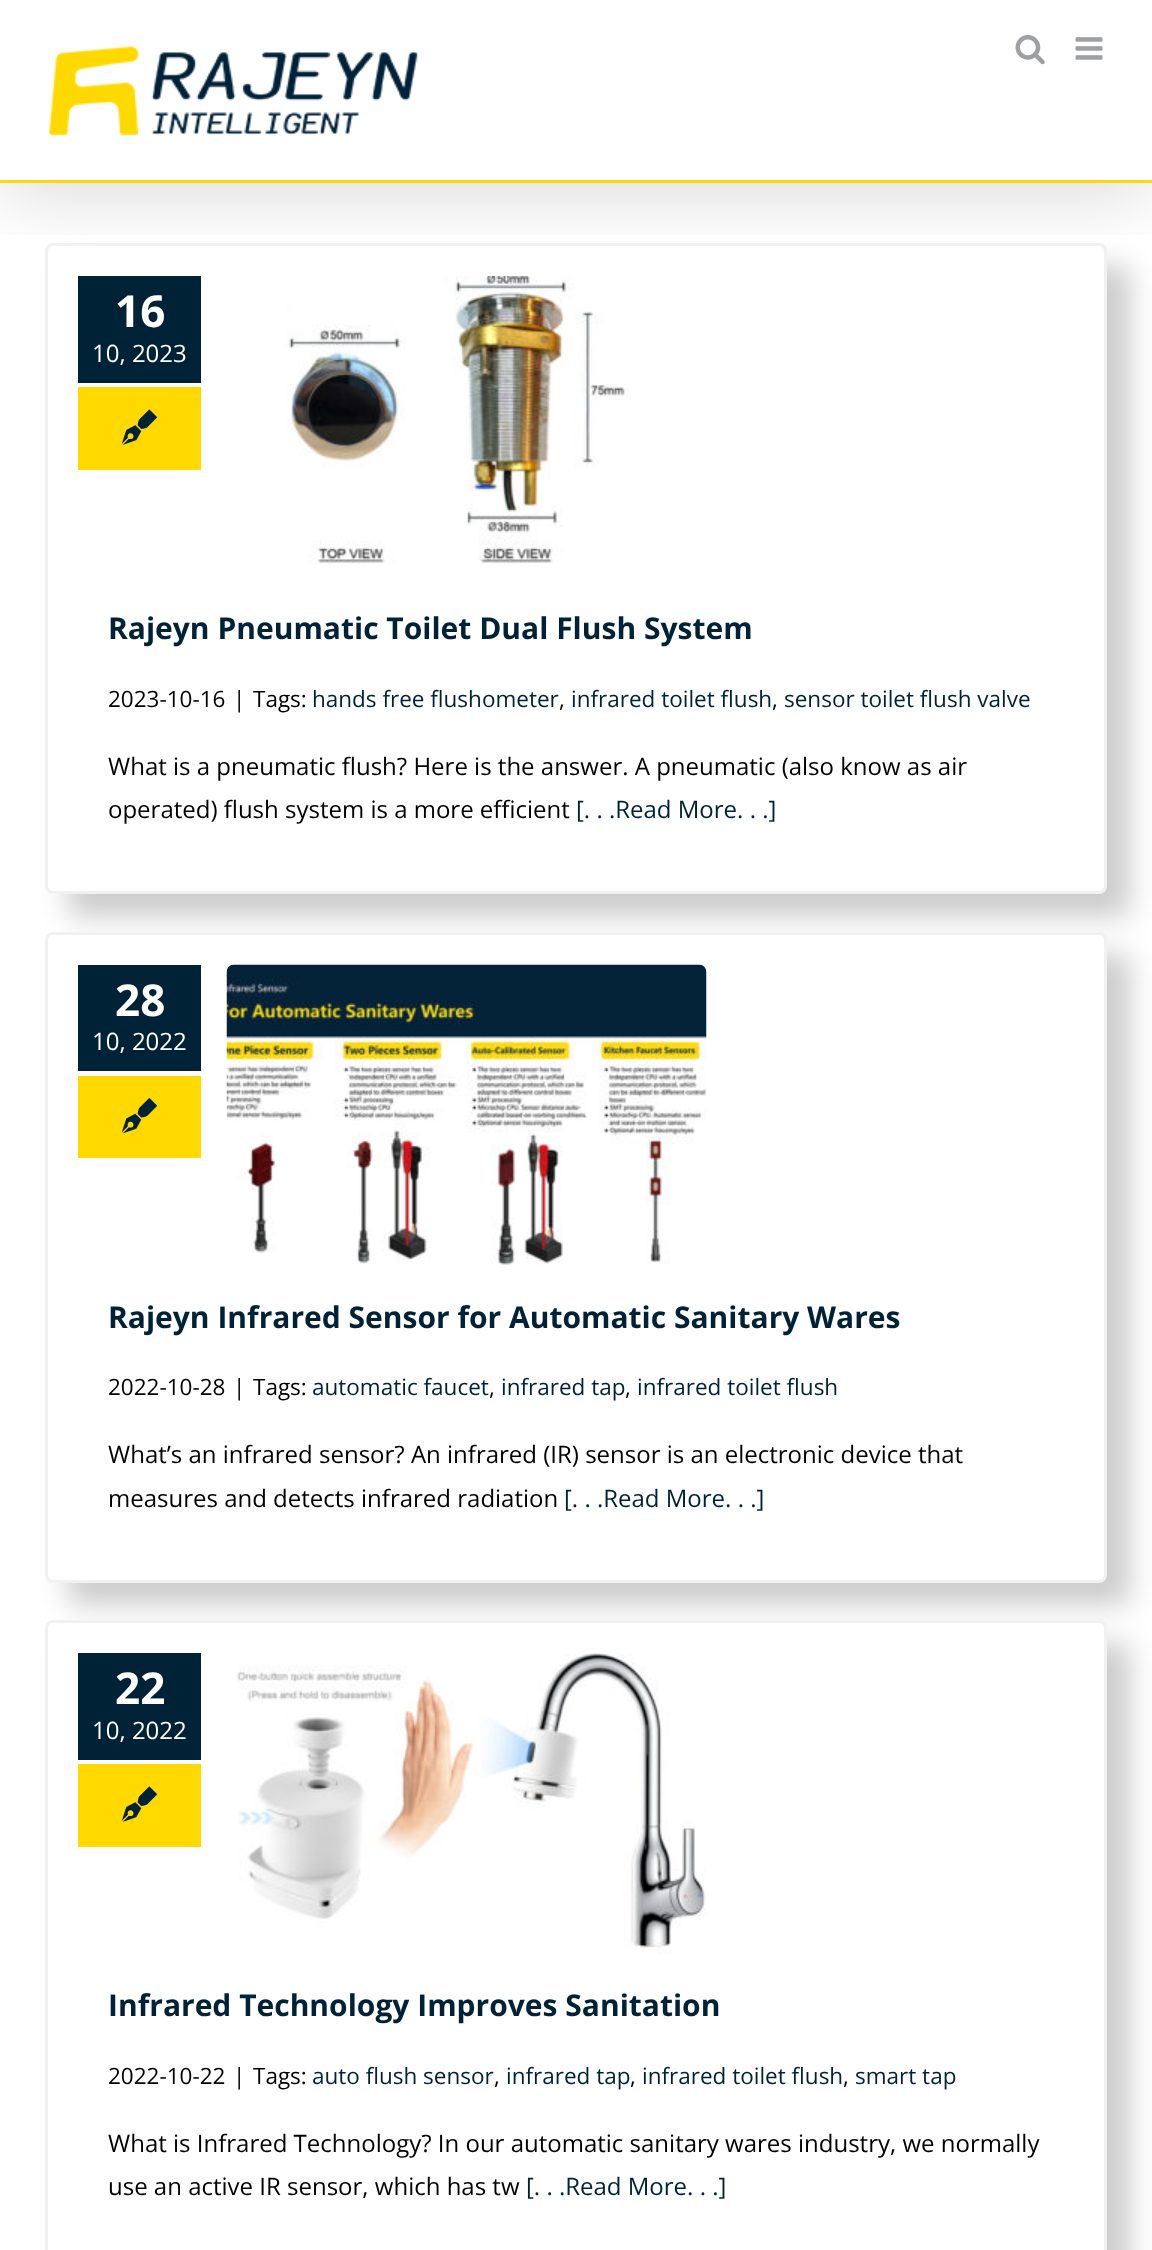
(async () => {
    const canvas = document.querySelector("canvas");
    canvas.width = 1152;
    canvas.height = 2250;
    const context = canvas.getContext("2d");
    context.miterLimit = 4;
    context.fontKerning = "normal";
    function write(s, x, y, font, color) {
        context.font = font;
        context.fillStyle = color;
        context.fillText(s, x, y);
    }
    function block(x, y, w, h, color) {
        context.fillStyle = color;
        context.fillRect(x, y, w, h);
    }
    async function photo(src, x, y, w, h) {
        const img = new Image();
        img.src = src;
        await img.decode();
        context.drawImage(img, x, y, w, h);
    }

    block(0, 0, 1152, 2250, "rgb(255, 255, 255)");
    context.fillStyle = "rgba(0, 0, 0, 0.2)";
    context.filter = "blur(14px)";
    context.beginPath();
    context.roundRect(68, 266, 1062, 651, 8);
    context.fill();
    context.filter = "none";
    context.fillStyle = "rgb(255, 255, 255)";
    context.beginPath();
    context.roundRect(46.5, 244.5, 1059, 648, 6.5);
    context.fill();
    context.strokeStyle = "rgb(241, 241, 241)";
    context.lineWidth = 3;
    context.stroke();
    block(78, 276, 123, 107, "rgb(0, 34, 55)");
    await photo("media/5.png", 286, 276, 345, 288);
    context.save();
    context.beginPath();
    context.rect(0, 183, 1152, 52);
    context.clip();
    context.fillStyle = "rgba(0, 0, 0, 0.14)";
    context.filter = "blur(37.5px)";
    context.beginPath();
    context.rect(3, 18, 1146, 177);
    context.fill();
    context.filter = "none";
    context.restore();
    block(0, 180, 1152, 3, "rgb(255, 217, 0)");
    await photo("media/1.png", 49, 46, 369, 90);
    await photo("media/2.png", 1015, 35, 30, 30);
    await photo("media/3.png", 1075, 37, 28, 23);
    write("16", 115, 327, "bold 44px Open Sans", "rgb(255, 255, 255)");
    write("10, 2023", 92, 362, "24px Open Sans", "rgb(255, 255, 255)");
    block(78, 387, 123, 83, "rgb(255, 217, 0)");
    await photo("media/4.png", 121, 409, 37, 36);
    write("Rajeyn Pneumatic Toilet Dual Flush System", 108, 639, "bold 30px Open Sans", "rgb(0, 34, 55)");
    write("2023-10-16", 108, 707, "22.5px Open Sans", "rgb(0, 0, 0)");
    write("|", 233, 707, "22.5px Open Sans", "rgb(0, 0, 0)");
    write("Tags:", 253, 707, "22.5px Open Sans", "rgb(0, 0, 0)");
    write("hands free flushometer", 312, 707, "22.5px Open Sans", "rgb(0, 34, 55)");
    write(",", 559, 707, "22.5px Open Sans", "rgb(0, 0, 0)");
    write("infrared toilet flush", 571, 707, "22.5px Open Sans", "rgb(0, 34, 55)");
    write(",", 772, 707, "22.5px Open Sans", "rgb(0, 0, 0)");
    write("sensor toilet flush valve", 784, 707, "22.5px Open Sans", "rgb(0, 34, 55)");
    write("What is a pneumatic flush? Here is the answer. A pneumatic (also know as air", 108, 775, "24px Open Sans", "rgb(0, 0, 0)");
    write("operated) flush system is a more efficient", 108, 818, "24px Open Sans", "rgb(0, 0, 0)");
    write("[. . .Read More. . .]", 576, 818, "24px Open Sans", "rgb(0, 34, 55)");
    context.fillStyle = "rgba(0, 0, 0, 0.2)";
    context.filter = "blur(14px)";
    context.beginPath();
    context.roundRect(68, 954, 1062, 651, 8);
    context.fill();
    context.filter = "none";
    context.fillStyle = "rgb(255, 255, 255)";
    context.beginPath();
    context.roundRect(46.5, 933.5, 1059, 648, 6.5);
    context.fill();
    context.stroke();
    block(78, 965, 123, 106, "rgb(0, 34, 55)");
    write("28", 115, 1016, "bold 44px Open Sans", "rgb(255, 255, 255)");
    write("10, 2022", 92, 1050, "24px Open Sans", "rgb(255, 255, 255)");
    block(78, 1076, 123, 82, "rgb(255, 217, 0)");
    await photo("media/6.png", 121, 1097, 37, 37);
    await photo("media/7.png", 226, 964, 481, 301);
    write("Rajeyn Infrared Sensor for Automatic Sanitary Wares", 108, 1328, "bold 30px Open Sans", "rgb(0, 34, 55)");
    write("2022-10-28", 108, 1395, "22.5px Open Sans", "rgb(0, 0, 0)");
    write("|", 233, 1395, "22.5px Open Sans", "rgb(0, 0, 0)");
    write("Tags:", 253, 1395, "22.5px Open Sans", "rgb(0, 0, 0)");
    write("automatic faucet", 312, 1395, "22.5px Open Sans", "rgb(0, 34, 55)");
    write(",", 489, 1395, "22.5px Open Sans", "rgb(0, 0, 0)");
    write("infrared tap", 501, 1395, "22.5px Open Sans", "rgb(0, 34, 55)");
    write(",", 625, 1395, "22.5px Open Sans", "rgb(0, 0, 0)");
    write("infrared toilet flush", 637, 1395, "22.5px Open Sans", "rgb(0, 34, 55)");
    write("What’s an infrared sensor? An infrared (IR) sensor is an electronic device that", 108, 1463, "24px Open Sans", "rgb(0, 0, 0)");
    write("measures and detects infrared radiation", 108, 1507, "24px Open Sans", "rgb(0, 0, 0)");
    write("[. . .Read More. . .]", 564, 1507, "24px Open Sans", "rgb(0, 34, 55)");
    context.fillStyle = "rgba(0, 0, 0, 0.2)";
    context.filter = "blur(14px)";
    context.beginPath();
    context.roundRect(68, 1643, 1062, 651, 8);
    context.fill();
    context.filter = "none";
    context.fillStyle = "rgb(255, 255, 255)";
    context.beginPath();
    context.roundRect(46.5, 1621.5, 1059, 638, 6.5);
    context.fill();
    context.stroke();
    block(78, 1653, 123, 107, "rgb(0, 34, 55)");
    write("22", 115, 1704, "bold 44px Open Sans", "rgb(255, 255, 255)");
    write("10, 2022", 92, 1739, "24px Open Sans", "rgb(255, 255, 255)");
    block(78, 1764, 123, 83, "rgb(255, 217, 0)");
    await photo("media/4.png", 121, 1786, 37, 36);
    await photo("media/8.png", 236, 1653, 470, 300);
    write("Infrared Technology Improves Sanitation", 108, 2016, "bold 30px Open Sans", "rgb(0, 34, 55)");
    write("2022-10-22", 108, 2084, "22.5px Open Sans", "rgb(0, 0, 0)");
    write("|", 233, 2084, "22.5px Open Sans", "rgb(0, 0, 0)");
    write("Tags:", 253, 2084, "22.5px Open Sans", "rgb(0, 0, 0)");
    write("auto flush sensor", 312, 2084, "22.5px Open Sans", "rgb(0, 34, 55)");
    write(",", 494, 2084, "22.5px Open Sans", "rgb(0, 0, 0)");
    write("infrared tap", 506, 2084, "22.5px Open Sans", "rgb(0, 34, 55)");
    write(",", 630, 2084, "22.5px Open Sans", "rgb(0, 0, 0)");
    write("infrared toilet flush", 642, 2084, "22.5px Open Sans", "rgb(0, 34, 55)");
    write(",", 843, 2084, "22.5px Open Sans", "rgb(0, 0, 0)");
    write("smart tap", 855, 2084, "22.5px Open Sans", "rgb(0, 34, 55)");
    write("What is Infrared Technology? In our automatic sanitary wares industry, we normally", 108, 2152, "24px Open Sans", "rgb(0, 0, 0)");
    write("use an active IR sensor, which has tw", 108, 2195, "24px Open Sans", "rgb(0, 0, 0)");
    write("[. . .Read More. . .]", 526, 2195, "24px Open Sans", "rgb(0, 34, 55)");
})();
